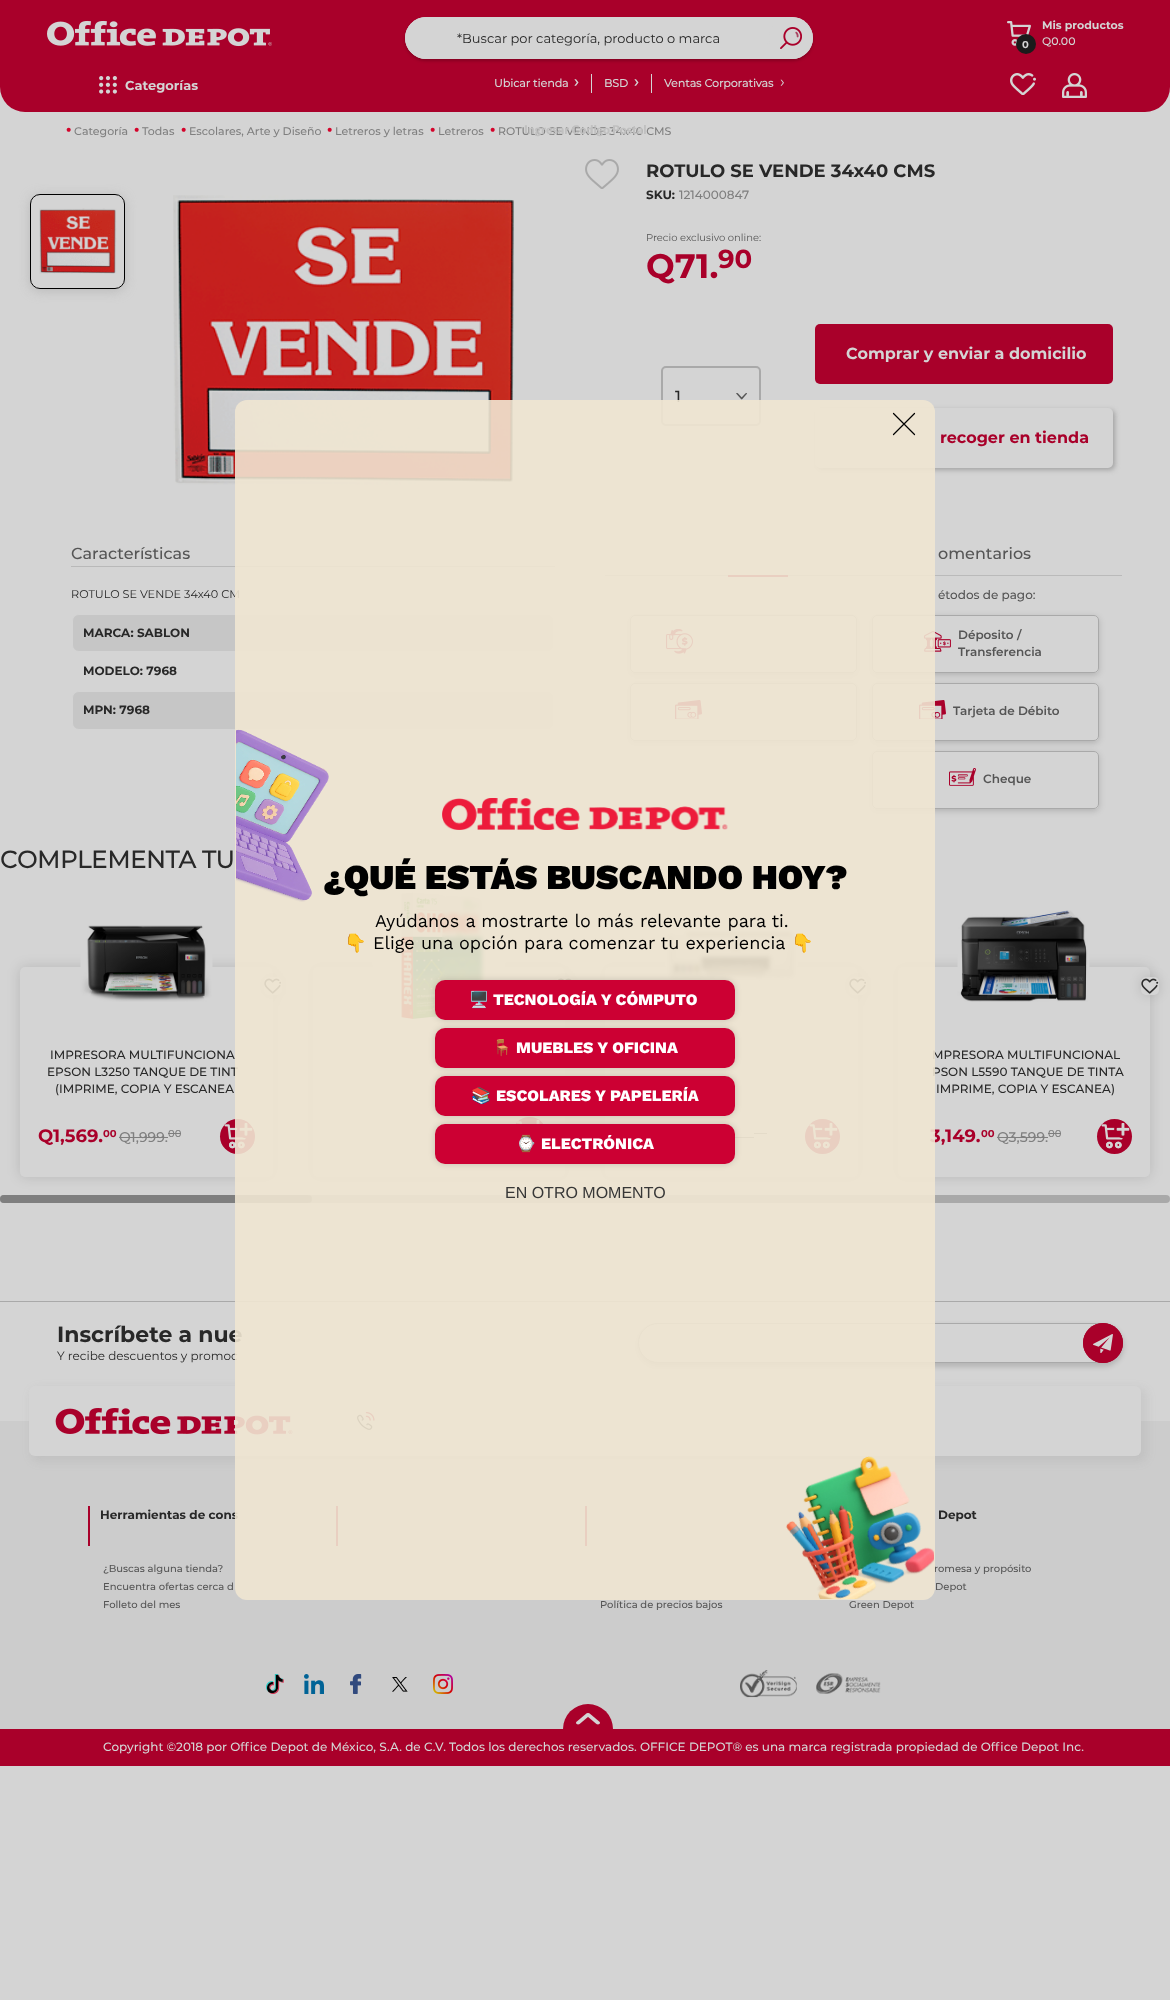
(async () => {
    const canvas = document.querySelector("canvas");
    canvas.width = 1170;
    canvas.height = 2000;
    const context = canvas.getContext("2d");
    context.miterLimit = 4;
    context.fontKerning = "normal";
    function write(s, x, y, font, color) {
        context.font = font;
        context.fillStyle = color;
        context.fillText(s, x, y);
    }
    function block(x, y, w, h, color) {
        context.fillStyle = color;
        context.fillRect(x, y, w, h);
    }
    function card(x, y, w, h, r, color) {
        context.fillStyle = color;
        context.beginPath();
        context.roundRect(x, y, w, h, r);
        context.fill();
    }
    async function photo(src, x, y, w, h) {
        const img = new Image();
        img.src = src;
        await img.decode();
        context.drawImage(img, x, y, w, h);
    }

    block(0, 0, 1170, 2000, "rgb(212, 212, 212)");
    context.fillStyle = "rgb(169, 0, 42)";
    context.beginPath();
    context.roundRect(0, 67, 1170, 45, [0, 0, 25, 25]);
    context.fill();
    await photo("media/1.png", 99, 76, 18, 18);
    write("Categorías", 125, 90, "bold 13px Montserrat", "rgb(212, 212, 212)");
    await photo("media/2.png", 1010, 73, 26, 22);
    await photo("media/3.png", 1062, 73, 25, 25);
    block(0, 0, 1170, 67, "rgb(169, 0, 42)");
    await photo("media/4.png", 47, 20, 225, 27);
    await photo("media/5.png", 1007, 21, 24, 25);
    context.fillStyle = "rgb(27, 27, 27)";
    context.beginPath();
    context.arc(1026, 44, 10, 0, Math.PI * 2);
    context.fill();
    write("0", 1022, 48, "bold 10px Montserrat", "rgb(212, 212, 212)");
    write("Mis productos", 1042, 29, "bold 11px Montserrat", "rgb(212, 212, 212)");
    write("Q0.00", 1042, 45, "500 11px Montserrat", "rgb(212, 212, 212)");
    block(591, 74, 1, 19, "rgb(212, 212, 212)");
    write("Ubicar tienda", 494, 87, "bold 11px 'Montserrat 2'", "rgb(212, 212, 212)");
    write("›", 574, 87, "bold 16px 'Montserrat 2'", "rgb(212, 212, 212)");
    block(651, 74, 1, 19, "rgb(212, 212, 212)");
    write("BSD", 604, 87, "bold 11px 'Montserrat 2'", "rgb(212, 212, 212)");
    write("›", 634, 87, "bold 16px 'Montserrat 2'", "rgb(212, 212, 212)");
    write("Ventas Corporativas", 664, 87, "bold 11px 'Montserrat 2'", "rgb(212, 212, 212)");
    write("›", 780, 87, "16px Montserrat", "rgb(212, 212, 212)");
    card(405, 17, 408, 42, 21, "rgb(212, 212, 212)");
    context.save();
    context.beginPath();
    context.moveTo(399, 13);
    context.lineTo(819, 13);
    context.lineTo(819, 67);
    context.lineTo(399, 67);
    context.closePath();
    context.moveTo(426, 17);
    context.lineTo(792, 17);
    context.bezierCurveTo(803.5, 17, 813, 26.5, 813, 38);
    context.bezierCurveTo(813, 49.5, 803.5, 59, 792, 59);
    context.lineTo(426, 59);
    context.bezierCurveTo(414.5, 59, 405, 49.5, 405, 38);
    context.bezierCurveTo(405, 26.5, 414.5, 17, 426, 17);
    context.closePath();
    context.clip("evenodd");
    context.fillStyle = "rgba(0, 0, 0, 0.21)";
    context.filter = "blur(1.5px)";
    context.beginPath();
    context.roundRect(405, 19, 408, 42, 21);
    context.fill();
    context.filter = "none";
    context.restore();
    context.beginPath();
    context.roundRect(405.5, 17.5, 363, 41, 20.5);
    context.fill();
    context.strokeStyle = "rgb(212, 212, 212)";
    context.stroke();
    write("*Buscar por categoría, producto o marca", 457, 43, "13px Montserrat", "rgb(40, 40, 40)");
    card(769, 17, 44, 42, 21, "rgb(212, 212, 212)");
    await photo("media/6.png", 780, 27, 22, 22);
    write("·", 65, 137, "bold 25px 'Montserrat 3'", "rgb(212, 4, 43)");
    write("Categoría", 74, 135, "500 11px Montserrat", "rgb(127, 127, 127)");
    write("·", 133, 137, "bold 25px 'Montserrat 3'", "rgb(212, 4, 43)");
    write("Todas", 142, 135, "500 11px Montserrat", "rgb(127, 127, 127)");
    write("·", 180, 137, "bold 25px 'Montserrat 3'", "rgb(212, 4, 43)");
    write("Escolares, Arte y Diseño", 189, 135, "500 11px Montserrat", "rgb(127, 127, 127)");
    write("·", 326, 137, "bold 25px 'Montserrat 3'", "rgb(212, 4, 43)");
    write("Letreros y letras", 335, 135, "500 11px Montserrat", "rgb(127, 127, 127)");
    write("·", 429, 137, "bold 25px 'Montserrat 3'", "rgb(212, 4, 43)");
    write("Letreros", 438, 135, "500 11px Montserrat", "rgb(127, 127, 127)");
    write("·", 489, 137, "bold 25px 'Montserrat 3'", "rgb(212, 4, 43)");
    write("ROTULO SE VENDE 34x40 CMS", 498, 135, "500 11px Montserrat", "rgb(127, 127, 127)");
    await photo("media/7.png", 585, 159, 34, 30);
    context.save();
    context.beginPath();
    context.moveTo(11, 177);
    context.lineTo(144, 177);
    context.lineTo(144, 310);
    context.lineTo(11, 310);
    context.closePath();
    context.moveTo(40, 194);
    context.lineTo(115, 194);
    context.bezierCurveTo(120.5, 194, 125, 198.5, 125, 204);
    context.lineTo(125, 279);
    context.bezierCurveTo(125, 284.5, 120.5, 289, 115, 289);
    context.lineTo(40, 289);
    context.bezierCurveTo(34.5, 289, 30, 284.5, 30, 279);
    context.lineTo(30, 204);
    context.bezierCurveTo(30, 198.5, 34.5, 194, 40, 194);
    context.closePath();
    context.clip("evenodd");
    context.fillStyle = "rgba(169, 169, 169, 0.6)";
    context.filter = "blur(6px)";
    context.beginPath();
    context.roundRect(30, 196, 95, 95, 10);
    context.fill();
    context.filter = "none";
    context.restore();
    context.beginPath();
    context.roundRect(30.5, 194.5, 94, 94, 9.5);
    context.strokeStyle = "rgb(0, 0, 0)";
    context.stroke();
    await photo("media/8.png", 39, 208, 78, 66);
    await photo("media/9.png", 173, 195, 341, 291);
    write("Ingresar Codigo Postal", 524, 134, "900 12px Lato", "rgb(192, 192, 192)");
    write("Precio exclusivo online:", 646, 241, "10px Montserrat", "rgb(85, 85, 85)");
    write("Q71.", 646, 278, "bold 34px Montserrat", "rgb(169, 0, 42)");
    write("90", 718, 268, "bold 26px Montserrat", "rgb(169, 0, 42)");
    context.beginPath();
    context.roundRect(662, 367, 98, 58, 4);
    context.strokeStyle = "rgb(169, 169, 169)";
    context.lineWidth = 2;
    context.stroke();
    write("1", 675, 402, "500 16px Montserrat", "rgb(40, 40, 40)");
    await photo("media/10.png", 736, 393, 11, 7);
    card(815, 324, 298, 60, 5, "rgb(169, 0, 42)");
    write("Comprar y enviar a domicilio", 846, 359, "bold 16px Montserrat", "rgb(212, 212, 212)");
    context.fillStyle = "rgb(162, 162, 162)";
    context.filter = "blur(2.5px)";
    context.beginPath();
    context.roundRect(817, 410, 298, 60, 5);
    context.fill();
    context.filter = "none";
    card(815, 408, 298, 60, 5, "rgb(212, 212, 212)");
    write("recoger en tienda", 940, 443, "bold 16px Montserrat", "rgb(169, 0, 42)");
    write("ROTULO SE VENDE 34x40 CMS", 646, 177, "bold 18px Montserrat", "rgb(40, 40, 40)");
    write("SKU:", 646, 199, "bold 12px Montserrat", "rgb(40, 40, 40)");
    write("1214000847", 679, 199, "500 12px Montserrat", "rgb(127, 127, 127)");
    write("Características", 71, 559, "500 16px Montserrat", "rgb(85, 85, 85)");
    block(71, 566, 484, 1, "rgb(185, 185, 185)");
    write("ROTULO SE VENDE 34x40 CM", 71, 598, "11.25px Montserrat", "rgb(40, 40, 40)");
    context.fillStyle = "rgb(198, 198, 198)";
    context.beginPath();
    context.roundRect(72.5, 614.5, 481, 37, 6.5);
    context.fill();
    context.strokeStyle = "rgb(212, 212, 212)";
    context.lineWidth = 1;
    context.stroke();
    write("MARCA: SABLON", 83, 637, "bold 12px Montserrat", "rgb(40, 40, 40)");
    write("MODELO: 7968", 83, 675, "bold 12px Montserrat", "rgb(40, 40, 40)");
    context.fillStyle = "rgb(198, 198, 198)";
    context.beginPath();
    context.roundRect(72.5, 691.5, 481, 38, 6.5);
    context.fill();
    context.stroke();
    write("MPN: 7968", 83, 714, "bold 12px Montserrat", "rgb(40, 40, 40)");
    write("omentarios", 938, 559, "500 16px Montserrat", "rgb(85, 85, 85)");
    block(605, 575, 517, 1, "rgb(186, 186, 186)");
    block(728, 575, 60, 2, "rgb(169, 0, 42)");
    write("étodos de pago:", 938, 599, "500 12px Montserrat", "rgb(85, 85, 85)");
    context.save();
    context.beginPath();
    context.moveTo(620, 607);
    context.lineTo(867, 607);
    context.lineTo(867, 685);
    context.lineTo(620, 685);
    context.closePath();
    context.moveTo(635, 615);
    context.lineTo(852, 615);
    context.bezierCurveTo(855, 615, 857, 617, 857, 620);
    context.lineTo(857, 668);
    context.bezierCurveTo(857, 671, 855, 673, 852, 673);
    context.lineTo(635, 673);
    context.bezierCurveTo(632, 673, 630, 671, 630, 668);
    context.lineTo(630, 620);
    context.bezierCurveTo(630, 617, 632, 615, 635, 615);
    context.closePath();
    context.clip("evenodd");
    context.fillStyle = "rgba(0, 0, 0, 0.16)";
    context.filter = "blur(3px)";
    context.beginPath();
    context.roundRect(630, 617, 227, 58, 5);
    context.fill();
    context.filter = "none";
    context.restore();
    context.beginPath();
    context.roundRect(630.5, 615.5, 226, 57, 4.5);
    context.strokeStyle = "rgb(169, 169, 169)";
    context.stroke();
    await photo("media/11.png", 666, 629, 27, 25);
    context.save();
    context.beginPath();
    context.moveTo(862, 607);
    context.lineTo(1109, 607);
    context.lineTo(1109, 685);
    context.lineTo(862, 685);
    context.closePath();
    context.moveTo(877, 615);
    context.lineTo(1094, 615);
    context.bezierCurveTo(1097, 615, 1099, 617, 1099, 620);
    context.lineTo(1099, 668);
    context.bezierCurveTo(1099, 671, 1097, 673, 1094, 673);
    context.lineTo(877, 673);
    context.bezierCurveTo(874, 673, 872, 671, 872, 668);
    context.lineTo(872, 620);
    context.bezierCurveTo(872, 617, 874, 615, 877, 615);
    context.closePath();
    context.clip("evenodd");
    context.fillStyle = "rgba(0, 0, 0, 0.16)";
    context.filter = "blur(3px)";
    context.beginPath();
    context.roundRect(872, 617, 227, 58, 5);
    context.fill();
    context.filter = "none";
    context.restore();
    context.beginPath();
    context.roundRect(872.5, 615.5, 226, 57, 4.5);
    context.stroke();
    await photo("media/12.png", 924, 631, 27, 21);
    write("Déposito /", 958, 639, "600 12px Montserrat", "rgb(85, 85, 85)");
    write("Transferencia", 958, 656, "600 12px Montserrat", "rgb(85, 85, 85)");
    context.save();
    context.beginPath();
    context.moveTo(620, 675);
    context.lineTo(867, 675);
    context.lineTo(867, 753);
    context.lineTo(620, 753);
    context.closePath();
    context.moveTo(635, 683);
    context.lineTo(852, 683);
    context.bezierCurveTo(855, 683, 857, 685, 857, 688);
    context.lineTo(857, 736);
    context.bezierCurveTo(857, 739, 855, 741, 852, 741);
    context.lineTo(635, 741);
    context.bezierCurveTo(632, 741, 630, 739, 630, 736);
    context.lineTo(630, 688);
    context.bezierCurveTo(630, 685, 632, 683, 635, 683);
    context.closePath();
    context.clip("evenodd");
    context.fillStyle = "rgba(0, 0, 0, 0.16)";
    context.filter = "blur(3px)";
    context.beginPath();
    context.roundRect(630, 685, 227, 58, 5);
    context.fill();
    context.filter = "none";
    context.restore();
    context.beginPath();
    context.roundRect(630.5, 683.5, 226, 57, 4.5);
    context.stroke();
    await photo("media/13.png", 675, 700, 27, 19);
    context.save();
    context.beginPath();
    context.moveTo(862, 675);
    context.lineTo(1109, 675);
    context.lineTo(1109, 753);
    context.lineTo(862, 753);
    context.closePath();
    context.moveTo(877, 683);
    context.lineTo(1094, 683);
    context.bezierCurveTo(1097, 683, 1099, 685, 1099, 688);
    context.lineTo(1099, 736);
    context.bezierCurveTo(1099, 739, 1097, 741, 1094, 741);
    context.lineTo(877, 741);
    context.bezierCurveTo(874, 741, 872, 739, 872, 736);
    context.lineTo(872, 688);
    context.bezierCurveTo(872, 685, 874, 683, 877, 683);
    context.closePath();
    context.clip("evenodd");
    context.fillStyle = "rgba(0, 0, 0, 0.16)";
    context.filter = "blur(3px)";
    context.beginPath();
    context.roundRect(872, 685, 227, 58, 5);
    context.fill();
    context.filter = "none";
    context.restore();
    context.beginPath();
    context.roundRect(872.5, 683.5, 226, 57, 4.5);
    context.stroke();
    await photo("media/13.png", 919, 700, 27, 19);
    write("Tarjeta de Débito", 953, 715, "600 12px Montserrat", "rgb(85, 85, 85)");
    context.save();
    context.beginPath();
    context.moveTo(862, 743);
    context.lineTo(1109, 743);
    context.lineTo(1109, 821);
    context.lineTo(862, 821);
    context.closePath();
    context.moveTo(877, 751);
    context.lineTo(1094, 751);
    context.bezierCurveTo(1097, 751, 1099, 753, 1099, 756);
    context.lineTo(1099, 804);
    context.bezierCurveTo(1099, 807, 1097, 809, 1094, 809);
    context.lineTo(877, 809);
    context.bezierCurveTo(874, 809, 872, 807, 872, 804);
    context.lineTo(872, 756);
    context.bezierCurveTo(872, 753, 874, 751, 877, 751);
    context.closePath();
    context.clip("evenodd");
    context.fillStyle = "rgba(0, 0, 0, 0.16)";
    context.filter = "blur(3px)";
    context.beginPath();
    context.roundRect(872, 753, 227, 58, 5);
    context.fill();
    context.filter = "none";
    context.restore();
    context.beginPath();
    context.roundRect(872.5, 751.5, 226, 57, 4.5);
    context.stroke();
    await photo("media/14.png", 949, 768, 27, 18);
    write("Cheque", 983, 783, "600 12px Montserrat", "rgb(85, 85, 85)");
    write("COMPLEMENTA TU", 0, 868, "bold 24px 'Montserrat 2'", "rgb(40, 40, 40)");
    context.fillStyle = "rgba(0, 0, 0, 0.13)";
    context.filter = "blur(6.5px)";
    context.beginPath();
    context.roundRect(20, 967, 253, 210, 5);
    context.fill();
    context.filter = "none";
    card(20, 967, 253, 210, 5, "rgb(212, 212, 212)");
    context.fillStyle = "rgba(0, 0, 0, 0.13)";
    context.filter = "blur(6px)";
    context.beginPath();
    context.roundRect(264, 977, 18, 18, 5);
    context.fill();
    context.filter = "none";
    card(264, 977, 18, 18, 5, "rgb(212, 212, 212)");
    await photo("media/15.png", 264, 978, 17, 16);
    await photo("media/16.png", 80, 925, 133, 77);
    write("IMPRESORA MULTIFUNCIONA", 50, 1059, "500 12px Montserrat", "rgb(40, 40, 40)");
    write("EPSON L3250 TANQUE DE TINT", 47, 1076, "500 12px Montserrat", "rgb(40, 40, 40)");
    write("(IMPRIME, COPIA Y ESCANEA", 55, 1093, "500 12px Montserrat", "rgb(40, 40, 40)");
    write("Q1,569.", 38, 1142, "bold 18px Montserrat", "rgb(169, 0, 42)");
    write("00", 103, 1137, "bold 10px Montserrat", "rgb(169, 0, 42)");
    write("Q1,999.", 119, 1142, "500 14px Montserrat", "rgb(127, 127, 127)");
    block(119, 1137, 49, 1, "rgb(127, 127, 127)");
    write("00", 168, 1137, "500 10px Montserrat", "rgb(127, 127, 127)");
    block(168, 1133, 13, 1, "rgb(127, 127, 127)");
    context.fillStyle = "rgb(169, 0, 42)";
    context.beginPath();
    context.arc(237.5, 1136.5, 17.5, 0, Math.PI * 2);
    context.fill();
    await photo("media/17.png", 224, 1123, 29, 26);
    context.fillStyle = "rgba(0, 0, 0, 0.13)";
    context.filter = "blur(6.5px)";
    context.beginPath();
    context.roundRect(313, 967, 252, 210, 5);
    context.fill();
    context.filter = "none";
    card(313, 967, 252, 210, 5, "rgb(212, 212, 212)");
    await photo("media/18.png", 372, 892, 134, 128);
    context.fillStyle = "rgba(0, 0, 0, 0.13)";
    context.filter = "blur(6px)";
    context.beginPath();
    context.roundRect(556, 977, 18, 18, 5);
    context.fill();
    context.filter = "none";
    card(556, 977, 18, 18, 5, "rgb(212, 212, 212)");
    await photo("media/19.png", 557, 978, 15, 2);
    context.fillStyle = "rgb(169, 0, 42)";
    context.beginPath();
    context.arc(529.5, 1134.5, 17.5, 0, Math.PI * 2);
    context.fill();
    await photo("media/20.png", 516, 1120, 24, 4);
    context.fillStyle = "rgba(0, 0, 0, 0.13)";
    context.filter = "blur(6.5px)";
    context.beginPath();
    context.roundRect(605, 967, 253, 210, 5);
    context.fill();
    context.filter = "none";
    card(605, 967, 253, 210, 5, "rgb(212, 212, 212)");
    await photo("media/21.png", 664, 929, 135, 52);
    context.fillStyle = "rgba(0, 0, 0, 0.13)";
    context.filter = "blur(6px)";
    context.beginPath();
    context.roundRect(849, 977, 18, 18, 5);
    context.fill();
    context.filter = "none";
    card(849, 977, 18, 18, 5, "rgb(212, 212, 212)");
    await photo("media/15.png", 849, 978, 17, 16);
    block(754, 1133, 13, 1, "rgb(127, 127, 127)");
    block(735, 1137, 19, 1, "rgb(127, 127, 127)");
    context.fillStyle = "rgb(169, 0, 42)";
    context.beginPath();
    context.arc(822.5, 1136.5, 17.5, 0, Math.PI * 2);
    context.fill();
    await photo("media/17.png", 809, 1123, 29, 26);
    context.fillStyle = "rgba(0, 0, 0, 0.13)";
    context.filter = "blur(6.5px)";
    context.beginPath();
    context.roundRect(898, 967, 252, 210, 5);
    context.fill();
    context.filter = "none";
    card(898, 967, 252, 210, 5, "rgb(212, 212, 212)");
    context.fillStyle = "rgba(0, 0, 0, 0.13)";
    context.filter = "blur(6px)";
    context.beginPath();
    context.roundRect(1141, 977, 18, 18, 5);
    context.fill();
    context.filter = "none";
    card(1141, 977, 18, 18, 5, "rgb(212, 212, 212)");
    await photo("media/22.png", 1141, 978, 18, 16);
    await photo("media/23.png", 957, 910, 133, 92);
    write("MPRESORA MULTIFUNCIONAL", 932, 1059, "500 12px Montserrat", "rgb(40, 40, 40)");
    write("PSON L5590 TANQUE DE TINTA", 932, 1076, "500 12px Montserrat", "rgb(40, 40, 40)");
    write("IMPRIME, COPIA Y ESCANEA)", 936, 1093, "500 12px Montserrat", "rgb(40, 40, 40)");
    write("3,149.", 930, 1142, "bold 18px Montserrat", "rgb(169, 0, 42)");
    write("00", 981, 1137, "bold 10px Montserrat", "rgb(169, 0, 42)");
    write("Q3,599.", 997, 1142, "500 14px Montserrat", "rgb(127, 127, 127)");
    block(997, 1137, 51, 1, "rgb(127, 127, 127)");
    write("00", 1048, 1137, "500 10px Montserrat", "rgb(127, 127, 127)");
    block(1048, 1133, 13, 1, "rgb(127, 127, 127)");
    context.fillStyle = "rgb(169, 0, 42)";
    context.beginPath();
    context.arc(1114.5, 1136.5, 17.5, 0, Math.PI * 2);
    context.fill();
    await photo("media/17.png", 1101, 1123, 29, 26);
    card(0, 1195, 1170, 8, 4, "rgb(169, 169, 169)");
    card(0, 1195, 312, 8, 4, "rgb(127, 127, 127)");
    block(0, 1301, 1170, 1, "rgb(169, 169, 169)");
    write("Inscríbete a nue", 57, 1342, "bold 22px Montserrat", "rgb(40, 40, 40)");
    write("Y recibe descuentos y promoc", 57, 1360, "12px Montserrat", "rgb(40, 40, 40)");
    context.fillStyle = "rgba(0, 0, 0, 0.14)";
    context.filter = "blur(2.5px)";
    context.beginPath();
    context.roundRect(637, 1325, 487, 42, 21);
    context.fill();
    context.filter = "none";
    context.fillStyle = "rgb(212, 212, 212)";
    context.beginPath();
    context.roundRect(638.5, 1323.5, 484, 39, 19.5);
    context.fill();
    context.stroke();
    context.fillStyle = "rgb(169, 0, 42)";
    context.beginPath();
    context.arc(1103, 1343, 20, 0, Math.PI * 2);
    context.fill();
    await photo("media/24.png", 1093, 1334, 20, 19);
    context.beginPath();
    context.arc(1103, 1343, 19.5, 0, Math.PI * 2);
    context.strokeStyle = "rgb(169, 0, 42)";
    context.stroke();
    block(0, 1421, 1170, 308, "rgb(204, 204, 204)");
    context.fillStyle = "rgba(127, 127, 127, 0.12)";
    context.filter = "blur(4px)";
    context.beginPath();
    context.roundRect(31, 1388, 1116, 74, 8);
    context.fill();
    context.filter = "none";
    card(29, 1386, 1112, 70, 6, "rgb(212, 212, 212)");
    await photo("media/25.png", 55, 1408, 238, 27);
    await photo("media/26.png", 357, 1412, 18, 18);
    block(88, 1506, 2, 40, "rgb(169, 0, 42)");
    write("Herramientas de cons", 100, 1519, "bold 12px Montserrat", "rgb(40, 40, 40)");
    write("¿Buscas alguna tienda?", 103, 1572, "500 10px Montserrat", "rgb(85, 85, 85)");
    write("Encuentra ofertas cerca d", 103, 1590, "500 10px Montserrat", "rgb(85, 85, 85)");
    write("Folleto del mes", 103, 1608, "500 10px Montserrat", "rgb(85, 85, 85)");
    block(336, 1506, 2, 40, "rgb(169, 0, 42)");
    block(585, 1506, 2, 40, "rgb(169, 0, 42)");
    write("Política de precios bajos", 600, 1608, "500 10px Montserrat", "rgb(85, 85, 85)");
    write("Depot", 938, 1519, "bold 12px Montserrat", "rgb(40, 40, 40)");
    write("romesa y propósito", 934, 1572, "500 10px Montserrat", "rgb(85, 85, 85)");
    write("Depot", 935, 1590, "500 10px Montserrat", "rgb(85, 85, 85)");
    write("Green Depot", 849, 1608, "500 10px Montserrat", "rgb(85, 85, 85)");
    await photo("media/27.png", 266, 1674, 18, 20);
    await photo("media/28.png", 304, 1674, 20, 20);
    await photo("media/29.png", 350, 1674, 12, 20);
    await photo("media/30.png", 392, 1677, 16, 15);
    await photo("media/31.png", 433, 1674, 20, 20);
    await photo("media/32.png", 740, 1670, 141, 28);
    block(0, 1729, 1170, 37, "rgb(169, 0, 42)");
    context.beginPath();
    context.roundRect(563, 1704, 50, 30, [25, 25, 0, 0]);
    context.fill();
    await photo("media/33.png", 576, 1713, 24, 12);
    write("Copyright ©2018 por Office Depot de México, S.A. de C.V. Todos los derechos reservados. OFFICE DEPOT® es una marca registrada propiedad de Office Depot Inc.", 103, 1751, "500 12px Montserrat", "rgb(212, 212, 212)");
    card(235, 400, 700, 1200, 12, "rgba(240, 230, 210, 0.9)");
    context.beginPath();
    context.moveTo(893.5, 413.5);
    context.lineTo(914.5, 434.5);
    context.moveTo(914.5, 413.5);
    context.lineTo(893.5, 434.5);
    context.strokeStyle = "rgb(0, 0, 0)";
    context.lineWidth = 1.2;
    context.lineCap = "round";
    context.stroke();
    await photo("media/34.png", 442, 798, 286, 32);
    await photo("media/35.png", 236, 729, 93, 173);
    write("¿QUÉ ESTÁS BUSCANDO HOY?", 323, 889, "900 35px Work Sans", "rgb(0, 0, 0)");
    write("Ayúdanos a mostrarte lo más relevante para ti.", 375, 927, "18px Work Sans", "rgb(0, 0, 0)");
    write("👇", 344, 949, "18px Noto Color Emoji", "rgb(0, 0, 0)");
    write("Elige una opción para comenzar tu experiencia", 373, 949, "18px Work Sans", "rgb(0, 0, 0)");
    write("👇", 791, 949, "18px Noto Color Emoji", "rgb(0, 0, 0)");
    context.fillStyle = "rgba(0, 0, 0, 0.16)";
    context.filter = "blur(3px)";
    context.beginPath();
    context.roundRect(435, 1124, 300, 40, 10);
    context.fill();
    context.filter = "none";
    card(435, 1124, 300, 40, 10, "rgb(204, 0, 51)");
    context.fillStyle = "rgba(0, 0, 0, 0.16)";
    context.filter = "blur(3px)";
    context.beginPath();
    context.roundRect(435, 1076, 300, 40, 10);
    context.fill();
    context.filter = "none";
    card(435, 1076, 300, 40, 10, "rgb(204, 0, 51)");
    context.fillStyle = "rgba(0, 0, 0, 0.16)";
    context.filter = "blur(3px)";
    context.beginPath();
    context.roundRect(435, 1028, 300, 40, 10);
    context.fill();
    context.filter = "none";
    card(435, 1028, 300, 40, 10, "rgb(204, 0, 51)");
    context.fillStyle = "rgba(0, 0, 0, 0.16)";
    context.filter = "blur(3px)";
    context.beginPath();
    context.roundRect(435, 980, 300, 40, 10);
    context.fill();
    context.filter = "none";
    card(435, 980, 300, 40, 10, "rgb(204, 0, 51)");
    write("🖥️", 469, 1005, "bold 16px Noto Color Emoji", "rgb(255, 255, 255)");
    write("TECNOLOGÍA Y CÓMPUTO", 493, 1005, "800 16px Work Sans", "rgb(255, 255, 255)");
    write("🪑", 492, 1053, "bold 16px Noto Color Emoji", "rgb(255, 255, 255)");
    write("MUEBLES Y OFICINA", 516, 1053, "800 16px Work Sans", "rgb(255, 255, 255)");
    write("📚", 471, 1101, "bold 16px Noto Color Emoji", "rgb(255, 255, 255)");
    write("ESCOLARES Y PAPELERÍA", 496, 1101, "800 16px Work Sans", "rgb(255, 255, 255)");
    write("⌚", 516, 1149, "bold 16px Noto Color Emoji", "rgb(255, 255, 255)");
    write("ELECTRÓNICA", 541, 1149, "800 16px Work Sans", "rgb(255, 255, 255)");
    write("EN OTRO MOMENTO", 505, 1198, "16px Liberation Sans", "rgb(55, 55, 55)");
    await photo("media/36.png", 786, 1456, 148, 143);
})();
